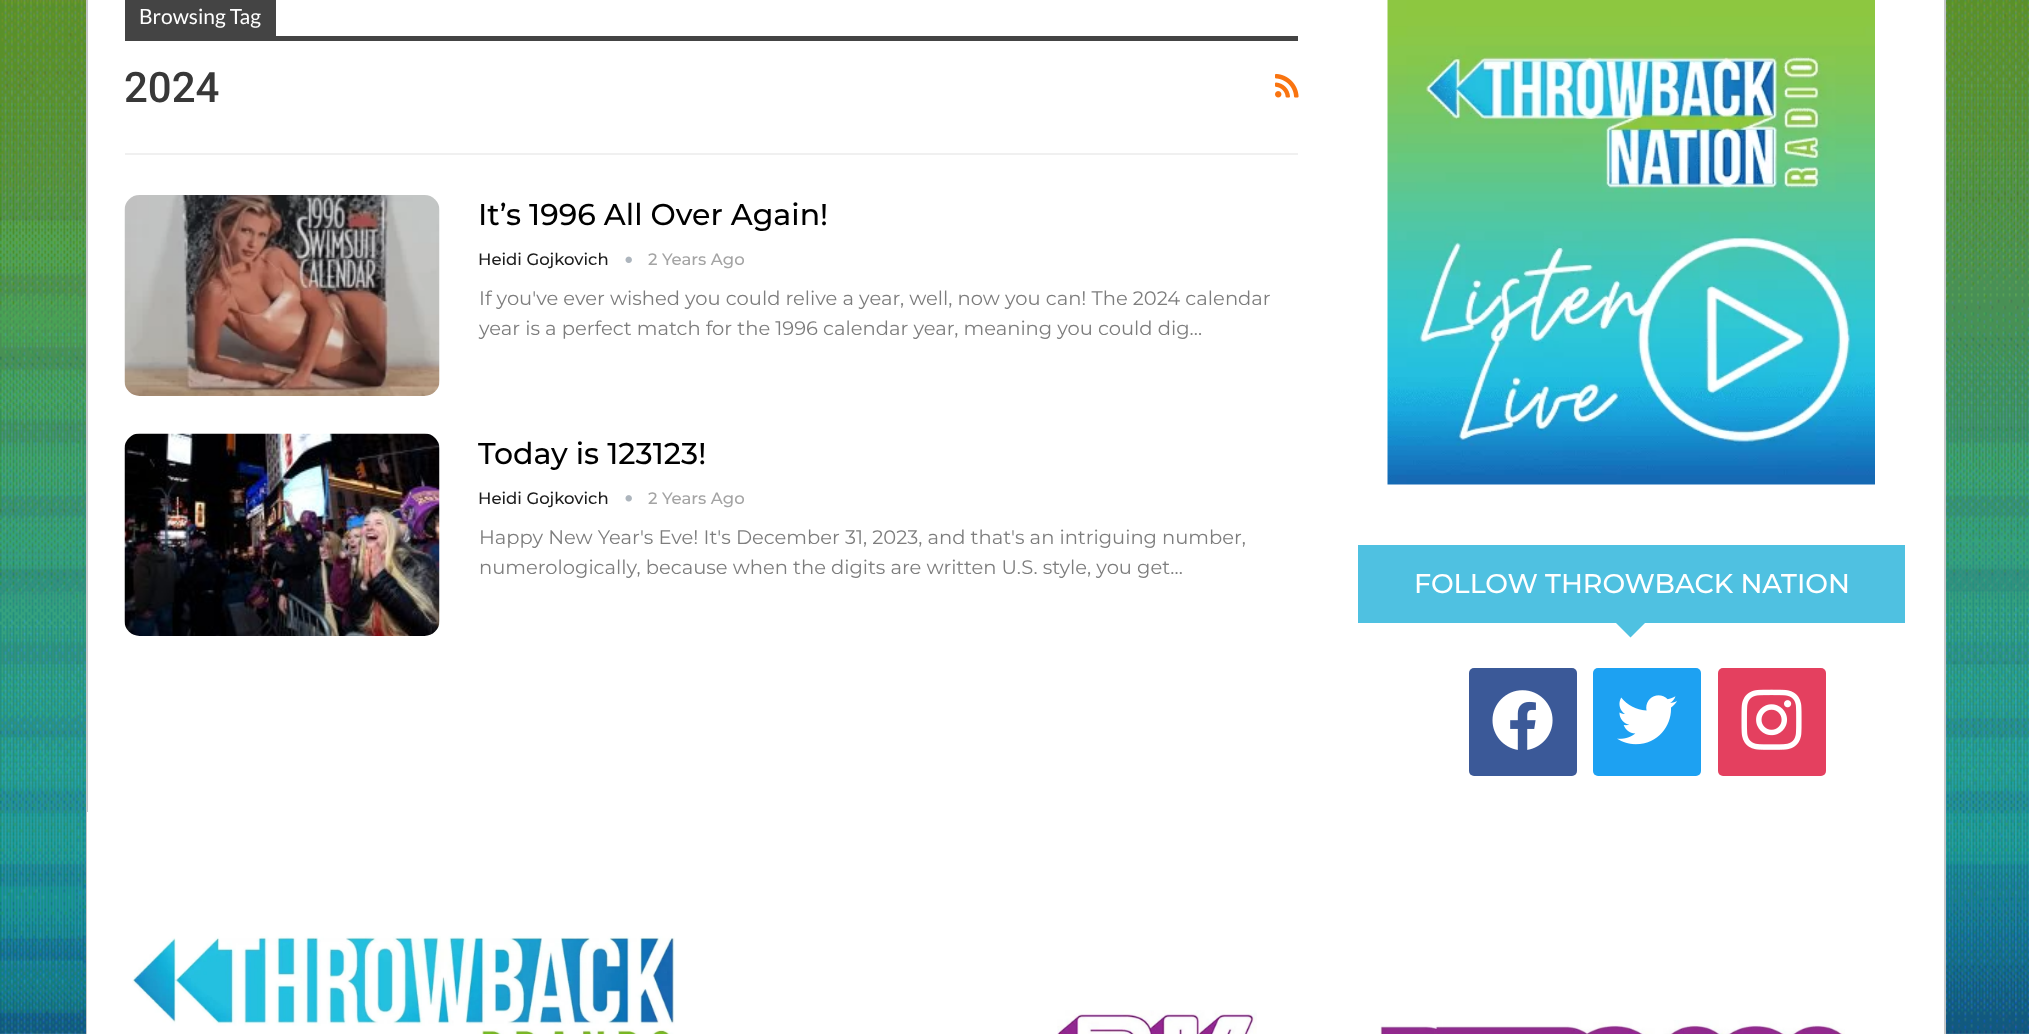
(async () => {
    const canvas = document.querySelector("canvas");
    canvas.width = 2029;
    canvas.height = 1034;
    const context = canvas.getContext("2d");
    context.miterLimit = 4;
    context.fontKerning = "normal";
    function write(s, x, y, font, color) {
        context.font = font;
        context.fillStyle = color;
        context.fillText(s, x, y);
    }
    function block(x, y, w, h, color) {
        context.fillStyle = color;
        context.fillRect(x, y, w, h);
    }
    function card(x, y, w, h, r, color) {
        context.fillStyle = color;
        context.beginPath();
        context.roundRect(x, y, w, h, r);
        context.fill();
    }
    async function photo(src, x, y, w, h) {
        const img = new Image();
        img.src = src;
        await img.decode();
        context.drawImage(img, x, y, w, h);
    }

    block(0, 0, 2029, 1034, "rgb(255, 255, 255)");
    await photo("media/1.png", 0, 0, 2029, 1034);
    block(88, 0, 1856, 812, "rgb(255, 255, 255)");
    block(1944, 0, 2, 1034, "rgb(196, 198, 200)");
    block(86, 0, 2, 1034, "rgb(196, 198, 200)");
    block(125, 153, 1173, 2, "rgb(240, 240, 240)");
    block(125, 0, 151, 36, "rgb(68, 68, 68)");
    write("Browsing Tag", 139, 24, "21px Lato", "rgb(255, 255, 255)");
    block(125, 36, 1173, 5, "rgb(68, 68, 68)");
    write("2024", 124, 102, "500 42px Roboto", "rgb(56, 56, 56)");
    await photo("media/2.png", 1275, 73, 24, 25);
    await photo("media/3.png", 124, 195, 316, 201);
    write("It’s 1996 All Over Again!", 478, 225, "500 30px Montserrat", "rgb(0, 0, 0)");
    write("Heidi Gojkovich", 478, 265, "500 16.5px Montserrat", "rgb(28, 28, 28)");
    await photo("media/4.png", 625, 256, 7, 7);
    write("2 Years Ago", 648, 265, "500 16.5px Montserrat", "rgb(164, 164, 164)");
    write("If you've ever wished you could relive a year, well, now you can! The 2024 calendar", 479, 305, "19.5px Montserrat", "rgb(125, 125, 125)");
    write("year is a perfect match for the 1996 calendar year, meaning you could dig…", 479, 335, "19.5px Montserrat", "rgb(125, 125, 125)");
    await photo("media/5.png", 124, 433, 316, 203);
    write("Today is 123123!", 478, 464, "500 30px Montserrat", "rgb(0, 0, 0)");
    write("Heidi Gojkovich", 478, 504, "500 16.5px Montserrat", "rgb(28, 28, 28)");
    await photo("media/6.png", 625, 495, 7, 7);
    write("2 Years Ago", 648, 504, "500 16.5px Montserrat", "rgb(164, 164, 164)");
    write("Happy New Year's Eve! It's December 31, 2023, and that's an intriguing number,", 479, 544, "19.5px Montserrat", "rgb(125, 125, 125)");
    write("numerologically, because when the digits are written U.S. style, you get…", 479, 574, "19.5px Montserrat", "rgb(125, 125, 125)");
    await photo("media/7.png", 1387, 0, 488, 485);
    context.fillStyle = "rgb(79, 193, 225)";
    context.beginPath();
    context.moveTo(1615.5, 622.5);
    context.lineTo(1645.5, 622.5);
    context.lineTo(1630.5, 637.5);
    context.closePath();
    context.fill();
    block(1358, 545, 547, 78, "rgb(79, 193, 225)");
    write("FOLLOW THROWBACK NATION", 1414, 593, "500 27px Montserrat", "rgb(255, 255, 255)");
    card(1469, 668, 108, 108, 5, "rgb(59, 89, 152)");
    await photo("media/8.png", 1492, 690, 61, 60);
    card(1593, 668, 108, 108, 5, "rgb(29, 161, 242)");
    await photo("media/9.png", 1617, 695, 60, 50);
    card(1718, 668, 108, 108, 5, "rgb(228, 64, 95)");
    await photo("media/10.png", 1741, 689, 61, 61);
    block(87, 812, 1857, 222, "rgb(255, 255, 255)");
    await photo("media/11.png", 132, 936, 543, 98);
    await photo("media/12.png", 1057, 1010, 200, 24);
    await photo("media/13.png", 1380, 1020, 465, 14);
})();
